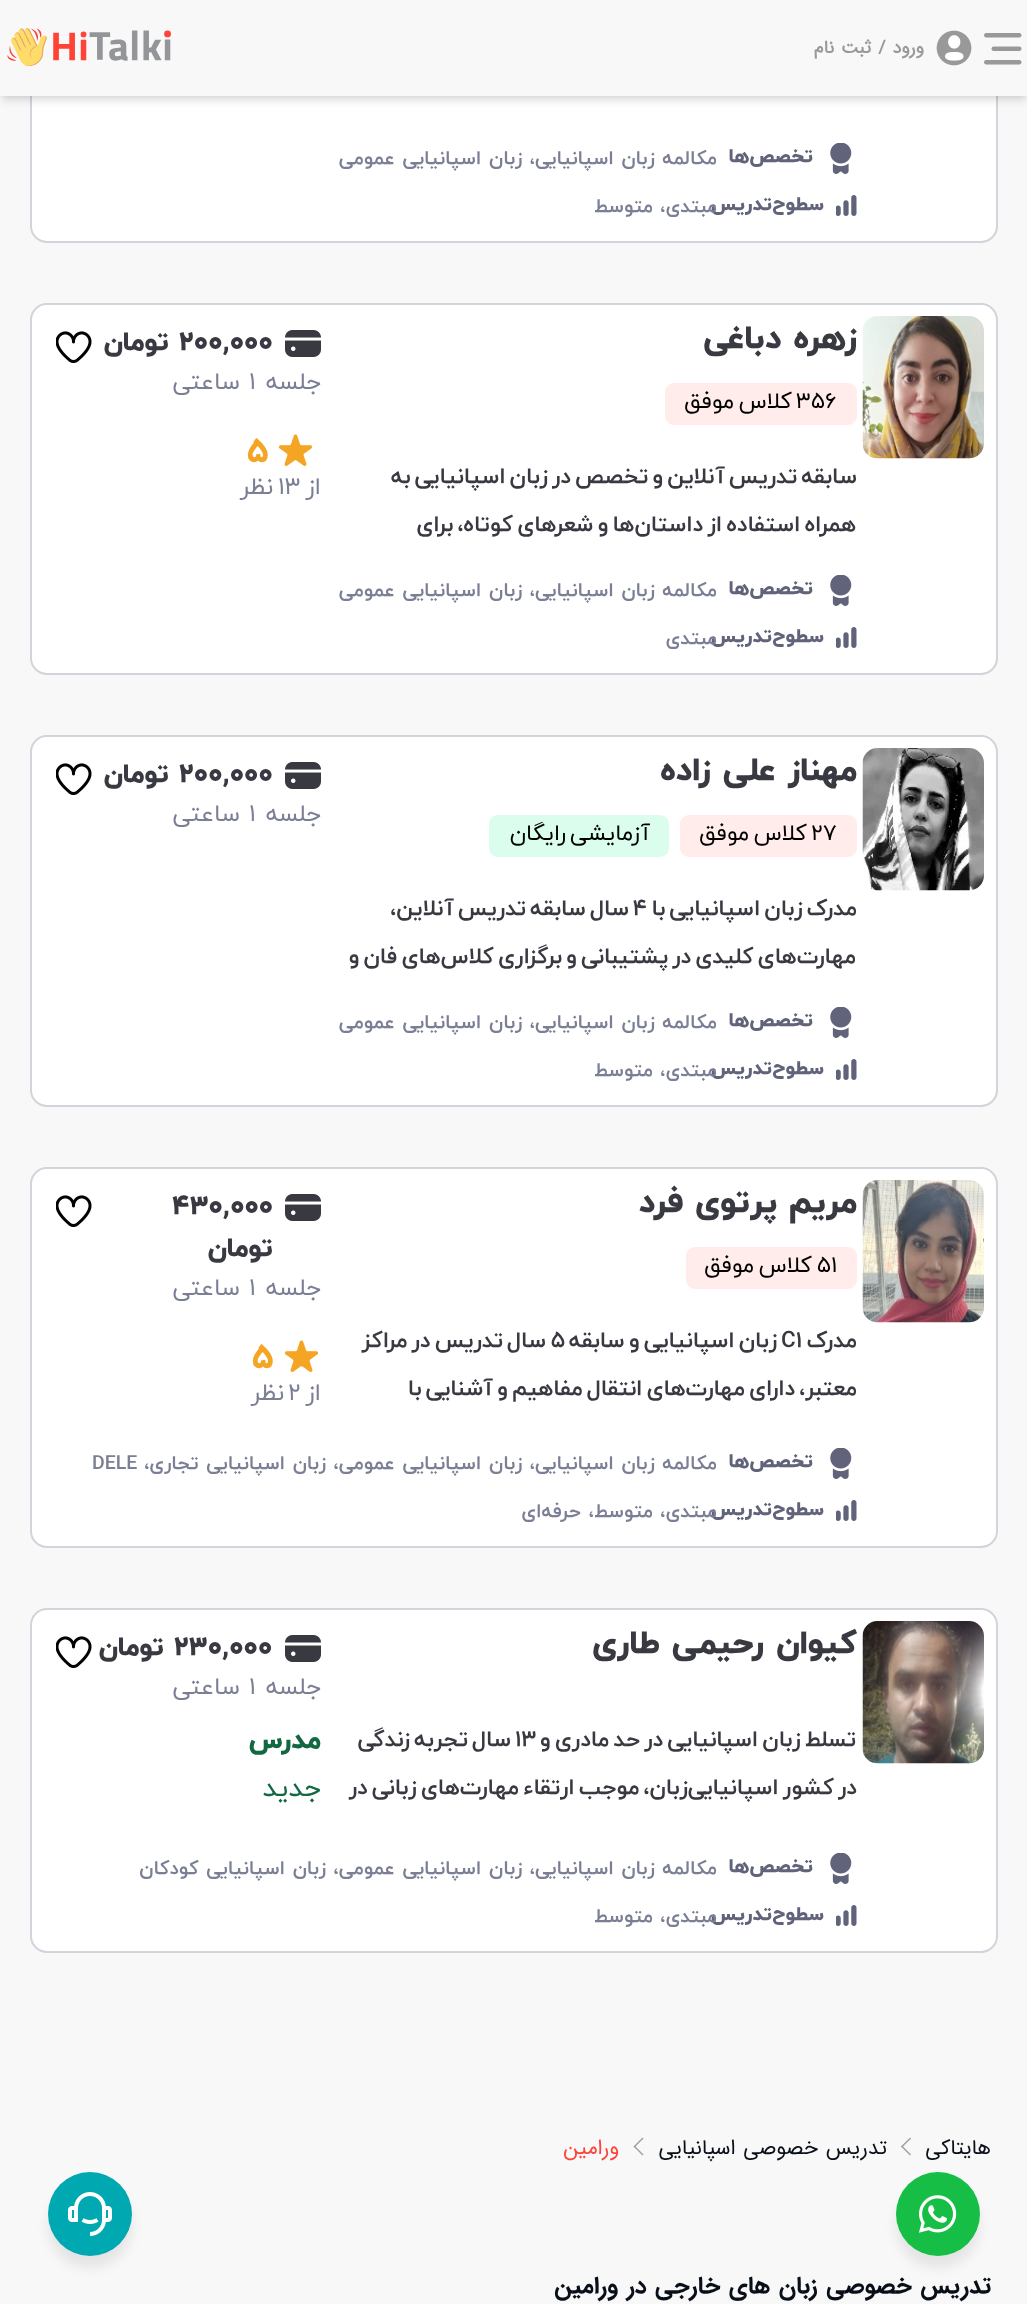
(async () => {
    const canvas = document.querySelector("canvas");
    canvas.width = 1027;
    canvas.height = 2304;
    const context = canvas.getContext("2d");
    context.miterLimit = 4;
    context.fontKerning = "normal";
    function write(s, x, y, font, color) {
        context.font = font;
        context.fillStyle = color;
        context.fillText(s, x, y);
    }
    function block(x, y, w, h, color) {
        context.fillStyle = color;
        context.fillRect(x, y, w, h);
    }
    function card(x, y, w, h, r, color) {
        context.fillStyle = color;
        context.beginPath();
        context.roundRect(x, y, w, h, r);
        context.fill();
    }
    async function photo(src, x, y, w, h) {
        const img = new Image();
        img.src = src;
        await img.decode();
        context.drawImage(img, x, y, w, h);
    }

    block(0, 0, 1027, 2304, "rgb(248, 248, 248)");
    context.fillStyle = "rgb(255, 255, 255)";
    context.beginPath();
    context.roundRect(31, -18, 966, 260, 16);
    context.fill();
    context.strokeStyle = "rgb(209, 213, 219)";
    context.lineWidth = 2;
    context.stroke();
    context.fillStyle = "rgba(0, 0, 0, 0.1)";
    context.filter = "blur(3px)";
    context.beginPath();
    context.rect(3, 6, 1022, 90);
    context.fill();
    context.filter = "none";
    context.filter = "blur(4.5px)";
    context.beginPath();
    context.rect(2, 8, 1024, 93);
    context.fill();
    context.filter = "none";
    block(0, 0, 1027, 96, "rgb(248, 248, 248)");
    await photo("media/1.png", 984, 33, 38, 32);
    await photo("media/2.png", 936, 30, 36, 36);
    context.wordSpacing = "1.5px";
    context.direction = "rtl";
    write("ورود / ثبت نام", 924, 53, "bold 18px 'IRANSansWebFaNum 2'", "rgb(153, 153, 153)");
    await photo("media/3.png", 7, 28, 164, 38);
    card(30, -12, 968, 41, 12, "rgb(248, 248, 248)");
    await photo("media/4.png", 830, 143, 22, 31);
    context.wordSpacing = "0px";
    write("تخصص‌ها", 813, 162, "800 19.5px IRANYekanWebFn", "rgb(96, 99, 122)");
    context.wordSpacing = "1.5px";
    write("مکالمه زبان اسپانیایی، زبان اسپانیایی عمومی", 717, 164, "bold 19.5px IRANYekanWebFn", "rgb(123, 127, 149)");
    await photo("media/5.png", 836, 195, 21, 21);
    context.wordSpacing = "0px";
    write("سطوح‌تدریس", 824, 210, "800 19.5px IRANYekanWebFn", "rgb(96, 99, 122)");
    write("مبتدی،", 717, 212, "bold 19.5px IRANYekanWebFn", "rgb(123, 127, 149)");
    write("متوسط", 653, 212, "bold 19.5px IRANYekanWebFn", "rgb(123, 127, 149)");
    context.fillStyle = "rgb(255, 255, 255)";
    context.beginPath();
    context.roundRect(31, 304, 966, 370, 16);
    context.fill();
    context.stroke();
    await photo("media/6.png", 862, 316, 122, 143);
    context.wordSpacing = "1.5px";
    write("زهره دباغی", 857, 348, "800 33px IRANYekanWebFn", "rgb(56, 57, 65)");
    context.fillStyle = "rgb(255, 236, 235)";
    context.beginPath();
    context.roundRect(666, 384, 190, 40, 8);
    context.fill();
    context.strokeStyle = "rgb(255, 236, 235)";
    context.stroke();
    context.wordSpacing = "0px";
    context.direction = "ltr";
    write("356", 796, 408, "22.5px IRANYekanWebFn", "rgb(0, 0, 0)");
    context.wordSpacing = "-3px";
    context.direction = "rtl";
    write("کلاس موفق", 792, 408, "22.5px IRANYekanWebFn", "rgb(0, 0, 0)");
    context.save();
    context.beginPath();
    context.rect(345, 455, 512, 93);
    context.clip();
    write("سابقه تدریس آنلاین و تخصص در زبان اسپانیایی به", 857, 483, "bold 22.5px IRANYekanWebFn", "rgb(56, 57, 65)");
    write("همراه استفاده از داستان‌ها و شعرهای کوتاه، برای", 856, 531, "bold 22.5px IRANYekanWebFn", "rgb(56, 57, 65)");
    context.restore();
    await photo("media/7.png", 285, 330, 36, 27);
    context.wordSpacing = "0px";
    context.direction = "ltr";
    write("200,000", 179, 350, "800 27px IRANYekanWebFn", "rgb(56, 57, 65)");
    context.direction = "rtl";
    write("تومان", 169, 350, "800 27px IRANYekanWebFn", "rgb(56, 57, 65)");
    write("جلسه", 321, 389, "24px IRANYekanWebFn", "rgb(123, 127, 149)");
    context.direction = "ltr";
    write("۱", 249, 389, "24px IRANYekanWebFn", "rgb(123, 127, 149)");
    context.direction = "rtl";
    write("ساعتی", 240, 389, "24px IRANYekanWebFn", "rgb(123, 127, 149)");
    await photo("media/8.png", 278, 434, 35, 32);
    context.direction = "ltr";
    write("5", 247, 462, "800 34px IRANYekanWebFn", "rgb(245, 165, 36)");
    context.direction = "rtl";
    write("از", 321, 494, "24px IRANYekanWebFn", "rgb(123, 127, 149)");
    context.direction = "ltr";
    write("13", 278, 494, "24px IRANYekanWebFn", "rgb(123, 127, 149)");
    context.direction = "rtl";
    write("نظر", 273, 494, "24px IRANYekanWebFn", "rgb(123, 127, 149)");
    await photo("media/9.png", 56, 331, 36, 32);
    await photo("media/4.png", 830, 575, 22, 31);
    write("تخصص‌ها", 813, 594, "800 19.5px IRANYekanWebFn", "rgb(96, 99, 122)");
    context.wordSpacing = "1.5px";
    write("مکالمه زبان اسپانیایی، زبان اسپانیایی عمومی", 717, 596, "bold 19.5px IRANYekanWebFn", "rgb(123, 127, 149)");
    await photo("media/5.png", 836, 627, 21, 21);
    context.wordSpacing = "0px";
    write("سطوح‌تدریس", 824, 642, "800 19.5px IRANYekanWebFn", "rgb(96, 99, 122)");
    write("مبتدی", 717, 644, "bold 19.5px IRANYekanWebFn", "rgb(123, 127, 149)");
    context.fillStyle = "rgb(255, 255, 255)";
    context.beginPath();
    context.roundRect(31, 736, 966, 370, 16);
    context.fill();
    context.strokeStyle = "rgb(209, 213, 219)";
    context.stroke();
    await photo("media/10.png", 862, 748, 122, 143);
    context.wordSpacing = "1.5px";
    write("مهناز علی زاده", 857, 780, "800 33px IRANYekanWebFn", "rgb(56, 57, 65)");
    context.fillStyle = "rgb(255, 236, 235)";
    context.beginPath();
    context.roundRect(681, 816, 175, 40, 8);
    context.fill();
    context.strokeStyle = "rgb(255, 236, 235)";
    context.stroke();
    context.wordSpacing = "0px";
    context.direction = "ltr";
    write("27", 811, 840, "22.5px IRANYekanWebFn", "rgb(0, 0, 0)");
    context.wordSpacing = "-3px";
    context.direction = "rtl";
    write("کلاس موفق", 807, 840, "22.5px IRANYekanWebFn", "rgb(0, 0, 0)");
    context.fillStyle = "rgb(219, 253, 237)";
    context.beginPath();
    context.roundRect(490, 816, 178, 40, 8);
    context.fill();
    context.strokeStyle = "rgb(219, 253, 237)";
    context.stroke();
    write("آزمایشی رایگان", 650, 840, "22.5px IRANYekanWebFn", "rgb(0, 0, 0)");
    context.save();
    context.beginPath();
    context.rect(345, 887, 512, 93);
    context.clip();
    write("مدرک زبان اسپانیایی با", 857, 915, "bold 22.5px IRANYekanWebFn", "rgb(56, 57, 65)");
    context.restore();
    write("سال سابقه تدریس آنلاین،", 629, 915, "bold 22.5px IRANYekanWebFn", "rgb(56, 57, 65)");
    context.wordSpacing = "0px";
    context.direction = "ltr";
    write("۴", 633, 915, "bold 22.5px IRANYekanWebFn", "rgb(56, 57, 65)");
    context.save();
    context.beginPath();
    context.rect(345, 887, 512, 93);
    context.clip();
    context.wordSpacing = "-3px";
    context.direction = "rtl";
    write("مهارت‌های کلیدی در پشتیبانی و برگزاری کلاس‌های فان و", 856, 963, "bold 22.5px IRANYekanWebFn", "rgb(56, 57, 65)");
    context.restore();
    await photo("media/7.png", 285, 762, 36, 27);
    write("200,000", 179, 782, "800 27px IRANYekanWebFn", "rgb(56, 57, 65)");
    context.direction = "rtl";
    write("تومان", 169, 782, "800 27px IRANYekanWebFn", "rgb(56, 57, 65)");
    write("جلسه", 321, 821, "24px IRANYekanWebFn", "rgb(123, 127, 149)");
    context.direction = "ltr";
    write("۱", 249, 821, "24px IRANYekanWebFn", "rgb(123, 127, 149)");
    context.direction = "rtl";
    write("ساعتی", 240, 821, "24px IRANYekanWebFn", "rgb(123, 127, 149)");
    await photo("media/9.png", 56, 763, 36, 32);
    await photo("media/4.png", 830, 1007, 22, 31);
    write("تخصص‌ها", 813, 1026, "800 19.5px IRANYekanWebFn", "rgb(96, 99, 122)");
    context.wordSpacing = "1.5px";
    write("مکالمه زبان اسپانیایی، زبان اسپانیایی عمومی", 717, 1028, "bold 19.5px IRANYekanWebFn", "rgb(123, 127, 149)");
    await photo("media/5.png", 836, 1059, 21, 21);
    context.wordSpacing = "0px";
    write("سطوح‌تدریس", 824, 1074, "800 19.5px IRANYekanWebFn", "rgb(96, 99, 122)");
    write("مبتدی،", 717, 1076, "bold 19.5px IRANYekanWebFn", "rgb(123, 127, 149)");
    write("متوسط", 653, 1076, "bold 19.5px IRANYekanWebFn", "rgb(123, 127, 149)");
    context.fillStyle = "rgb(255, 255, 255)";
    context.beginPath();
    context.roundRect(31, 1168, 966, 379, 16);
    context.fill();
    context.strokeStyle = "rgb(209, 213, 219)";
    context.stroke();
    await photo("media/11.png", 862, 1180, 122, 143);
    context.wordSpacing = "1.5px";
    write("مریم پرتوی فرد", 857, 1212, "800 33px IRANYekanWebFn", "rgb(56, 57, 65)");
    context.fillStyle = "rgb(255, 236, 235)";
    context.beginPath();
    context.roundRect(687, 1248, 169, 40, 8);
    context.fill();
    context.strokeStyle = "rgb(255, 236, 235)";
    context.stroke();
    context.wordSpacing = "0px";
    context.direction = "ltr";
    write("51", 817, 1272, "22.5px IRANYekanWebFn", "rgb(0, 0, 0)");
    context.wordSpacing = "-3px";
    context.direction = "rtl";
    write("کلاس موفق", 812, 1272, "22.5px IRANYekanWebFn", "rgb(0, 0, 0)");
    context.wordSpacing = "0px";
    write("مدرک", 857, 1347, "bold 22.5px IRANYekanWebFn", "rgb(56, 57, 65)");
    context.wordSpacing = "-3px";
    write("زبان اسپانیایی و سابقه", 777, 1347, "bold 22.5px IRANYekanWebFn", "rgb(56, 57, 65)");
    context.wordSpacing = "0px";
    context.direction = "ltr";
    write("C1", 781, 1347, "bold 22.5px IRANYekanWebFn", "rgb(56, 57, 65)");
    context.wordSpacing = "-3px";
    context.direction = "rtl";
    write("سال تدریس در مراکز", 546, 1347, "bold 22.5px IRANYekanWebFn", "rgb(56, 57, 65)");
    context.wordSpacing = "0px";
    context.direction = "ltr";
    write("۵", 551, 1347, "bold 22.5px IRANYekanWebFn", "rgb(56, 57, 65)");
    context.save();
    context.beginPath();
    context.rect(345, 1319, 512, 93);
    context.clip();
    context.wordSpacing = "-3px";
    context.direction = "rtl";
    write("معتبر، دارای مهارت‌های انتقال مفاهیم و آشنایی با", 857, 1395, "bold 22.5px IRANYekanWebFn", "rgb(56, 57, 65)");
    context.restore();
    await photo("media/7.png", 285, 1194, 36, 27);
    write("430,000", 172, 1214, "800 27px IRANYekanWebFn", "rgb(56, 57, 65)");
    context.direction = "rtl";
    write("تومان", 273, 1256, "800 27px IRANYekanWebFn", "rgb(56, 57, 65)");
    write("جلسه", 321, 1295, "24px IRANYekanWebFn", "rgb(123, 127, 149)");
    context.direction = "ltr";
    write("۱", 249, 1295, "24px IRANYekanWebFn", "rgb(123, 127, 149)");
    context.direction = "rtl";
    write("ساعتی", 240, 1295, "24px IRANYekanWebFn", "rgb(123, 127, 149)");
    await photo("media/8.png", 284, 1340, 35, 32);
    context.direction = "ltr";
    write("5", 252, 1368, "800 34px IRANYekanWebFn", "rgb(245, 165, 36)");
    context.direction = "rtl";
    write("از", 321, 1400, "24px IRANYekanWebFn", "rgb(123, 127, 149)");
    context.direction = "ltr";
    write("2", 288, 1400, "24px IRANYekanWebFn", "rgb(123, 127, 149)");
    context.direction = "rtl";
    write("نظر", 284, 1400, "24px IRANYekanWebFn", "rgb(123, 127, 149)");
    await photo("media/9.png", 56, 1195, 36, 32);
    await photo("media/4.png", 830, 1448, 22, 31);
    write("تخصص‌ها", 813, 1467, "800 19.5px IRANYekanWebFn", "rgb(96, 99, 122)");
    context.wordSpacing = "1.5px";
    write("مکالمه زبان اسپانیایی، زبان اسپانیایی عمومی، زبان اسپانیایی تجاری،", 717, 1469, "bold 19.5px IRANYekanWebFn", "rgb(123, 127, 149)");
    context.wordSpacing = "0px";
    context.direction = "ltr";
    write("DELE", 92, 1469, "bold 19.5px IRANYekanWebFn", "rgb(123, 127, 149)");
    await photo("media/5.png", 836, 1500, 21, 21);
    context.direction = "rtl";
    write("سطوح‌تدریس", 824, 1515, "800 19.5px IRANYekanWebFn", "rgb(96, 99, 122)");
    write("مبتدی،", 717, 1517, "bold 19.5px IRANYekanWebFn", "rgb(123, 127, 149)");
    write("متوسط،", 653, 1517, "bold 19.5px IRANYekanWebFn", "rgb(123, 127, 149)");
    write("حرفه‌ای", 581, 1517, "bold 19.5px IRANYekanWebFn", "rgb(123, 127, 149)");
    context.fillStyle = "rgb(255, 255, 255)";
    context.beginPath();
    context.roundRect(31, 1609, 966, 343, 16);
    context.fill();
    context.strokeStyle = "rgb(209, 213, 219)";
    context.stroke();
    await photo("media/12.png", 862, 1621, 122, 143);
    context.wordSpacing = "1.5px";
    write("کیوان رحیمی طاری", 857, 1653, "800 33px IRANYekanWebFn", "rgb(56, 57, 65)");
    context.save();
    context.beginPath();
    context.rect(345, 1718, 512, 93);
    context.clip();
    context.wordSpacing = "-3px";
    write("تسلط زبان اسپانیایی در حد مادری و", 856, 1746, "bold 22.5px IRANYekanWebFn", "rgb(56, 57, 65)");
    context.restore();
    context.wordSpacing = "-3px";
    write("سال تجربه زندگی", 511, 1746, "bold 22.5px IRANYekanWebFn", "rgb(56, 57, 65)");
    context.wordSpacing = "0px";
    context.direction = "ltr";
    write("۱۳", 515, 1746, "bold 22.5px IRANYekanWebFn", "rgb(56, 57, 65)");
    context.save();
    context.beginPath();
    context.rect(345, 1718, 512, 93);
    context.clip();
    context.wordSpacing = "-3px";
    context.direction = "rtl";
    write("در کشور اسپانیایی‌زبان، موجب ارتقاء مهارت‌های زبانی در", 857, 1794, "bold 22.5px IRANYekanWebFn", "rgb(56, 57, 65)");
    context.restore();
    await photo("media/7.png", 285, 1635, 36, 27);
    write("230,000", 174, 1655, "800 27px IRANYekanWebFn", "rgb(56, 57, 65)");
    context.direction = "rtl";
    write("تومان", 164, 1655, "800 27px IRANYekanWebFn", "rgb(56, 57, 65)");
    write("جلسه", 321, 1694, "24px IRANYekanWebFn", "rgb(123, 127, 149)");
    context.direction = "ltr";
    write("۱", 249, 1694, "24px IRANYekanWebFn", "rgb(123, 127, 149)");
    context.direction = "rtl";
    write("ساعتی", 240, 1694, "24px IRANYekanWebFn", "rgb(123, 127, 149)");
    write("مدرس", 321, 1748, "800 27px IRANYekanWebFn", "rgb(18, 105, 65)");
    write("جدید", 321, 1796, "27px IRANYekanWebFn", "rgb(18, 105, 65)");
    await photo("media/9.png", 56, 1636, 36, 32);
    await photo("media/4.png", 830, 1853, 22, 31);
    write("تخصص‌ها", 813, 1872, "800 19.5px IRANYekanWebFn", "rgb(96, 99, 122)");
    context.wordSpacing = "1.5px";
    write("مکالمه زبان اسپانیایی، زبان اسپانیایی عمومی، زبان اسپانیایی کودکان", 717, 1874, "bold 19.5px IRANYekanWebFn", "rgb(123, 127, 149)");
    await photo("media/5.png", 836, 1905, 21, 21);
    context.wordSpacing = "0px";
    write("سطوح‌تدریس", 824, 1920, "800 19.5px IRANYekanWebFn", "rgb(96, 99, 122)");
    write("مبتدی،", 717, 1922, "bold 19.5px IRANYekanWebFn", "rgb(123, 127, 149)");
    write("متوسط", 653, 1922, "bold 19.5px IRANYekanWebFn", "rgb(123, 127, 149)");
    write("هایتاکی", 991, 2154, "21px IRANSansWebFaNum", "rgb(9, 15, 25)");
    context.fillStyle = "rgb(156, 158, 164)";
    context.beginPath();
    context.moveTo(901, 2146.5);
    context.lineTo(910, 2137.5);
    context.lineTo(911, 2138.5);
    context.lineTo(902, 2147.5);
    context.closePath();
    context.fill();
    context.beginPath();
    context.moveTo(901, 2146.5);
    context.lineTo(902, 2145.5);
    context.lineTo(911, 2154.5);
    context.lineTo(910, 2155.5);
    context.closePath();
    context.fill();
    context.wordSpacing = "1.5px";
    write("تدریس خصوصی اسپانیایی", 887, 2154, "21px IRANSansWebFaNum", "rgb(9, 15, 25)");
    context.fillStyle = "rgb(156, 158, 164)";
    context.beginPath();
    context.moveTo(633.5, 2146.5);
    context.lineTo(642.5, 2137.5);
    context.lineTo(643.5, 2138.5);
    context.lineTo(634.5, 2147.5);
    context.closePath();
    context.fill();
    context.beginPath();
    context.moveTo(633.5, 2146.5);
    context.lineTo(634.5, 2145.5);
    context.lineTo(643.5, 2154.5);
    context.lineTo(642.5, 2155.5);
    context.closePath();
    context.fill();
    context.wordSpacing = "0px";
    write("ورامین", 619, 2154, "21px IRANSansWebFaNum", "rgb(255, 67, 56)");
    context.wordSpacing = "1.5px";
    write("تدریس خصوصی زبان های خارجی در ورامین", 991, 2293, "bold 24px IRANSansWebFaNum", "rgb(9, 15, 25)");
    context.fillStyle = "rgba(0, 0, 0, 0.08)";
    context.filter = "blur(6px)";
    context.beginPath();
    context.roundRect(48, 2184, 84, 84, 42);
    context.fill();
    context.filter = "none";
    context.fillStyle = "rgb(0, 169, 178)";
    context.beginPath();
    context.arc(90, 2214, 42, 0, Math.PI * 2);
    context.fill();
    await photo("media/13.png", 68, 2192, 44, 44);
    context.fillStyle = "rgba(0, 0, 0, 0.08)";
    context.filter = "blur(6px)";
    context.beginPath();
    context.roundRect(896, 2184, 84, 84, 42);
    context.fill();
    context.filter = "none";
    context.fillStyle = "rgb(22, 190, 69)";
    context.beginPath();
    context.arc(938, 2214, 42, 0, Math.PI * 2);
    context.fill();
    await photo("media/14.png", 918, 2195, 39, 38);
})();
